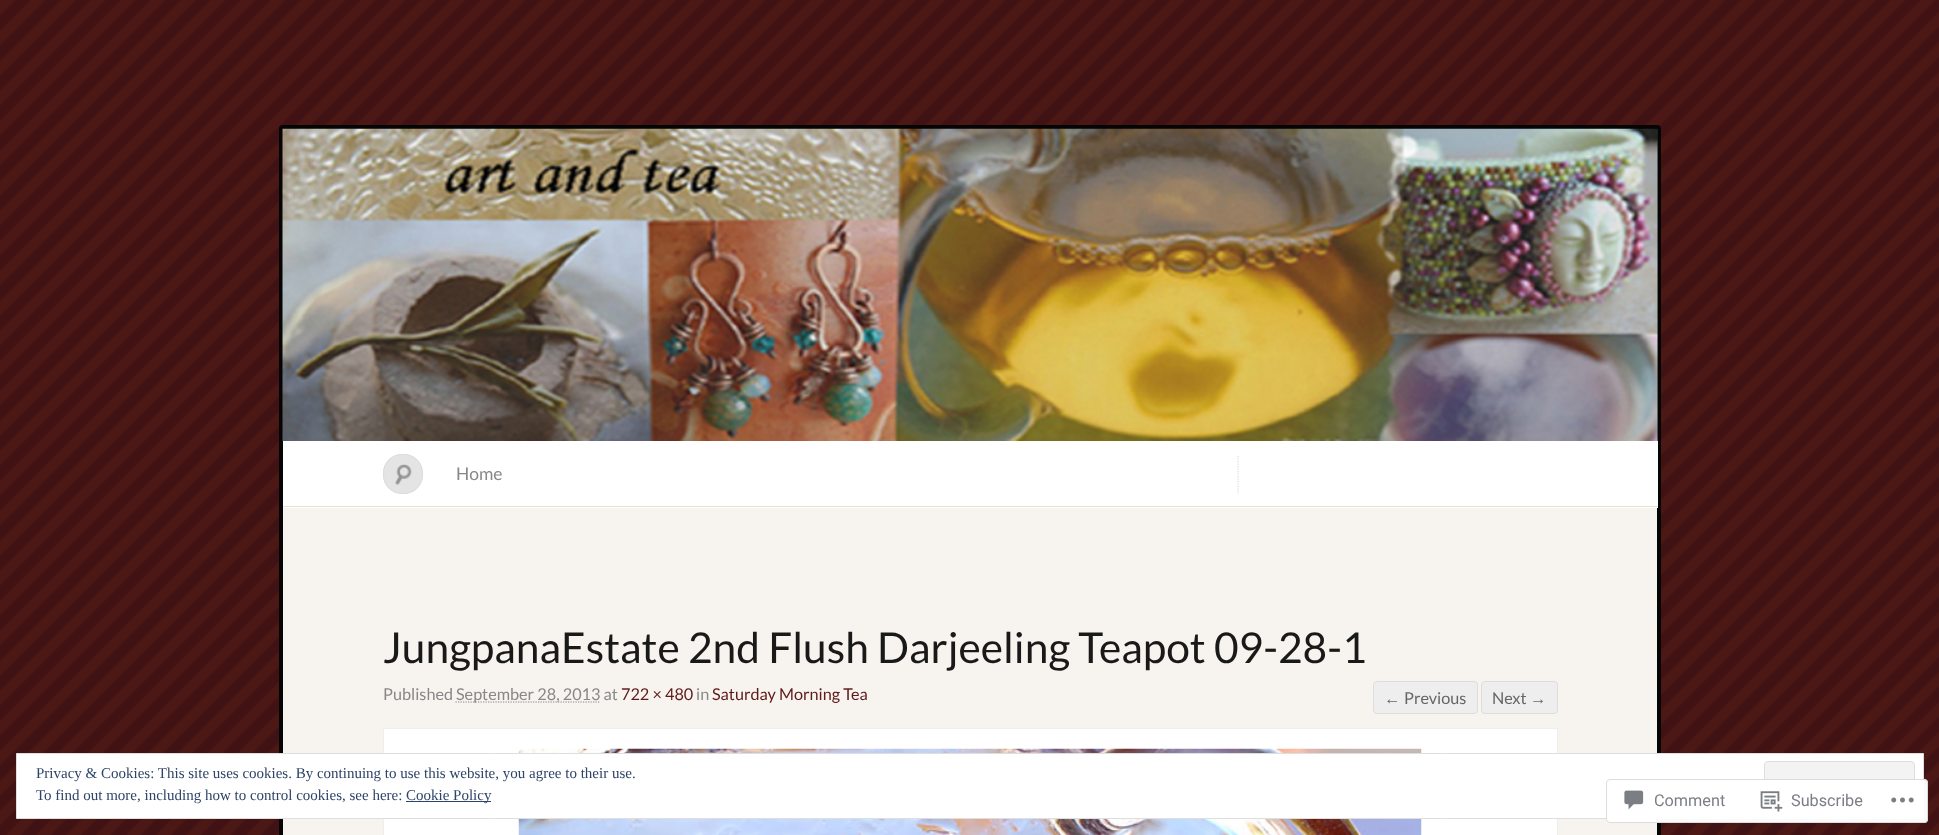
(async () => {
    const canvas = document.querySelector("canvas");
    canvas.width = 1939;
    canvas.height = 835;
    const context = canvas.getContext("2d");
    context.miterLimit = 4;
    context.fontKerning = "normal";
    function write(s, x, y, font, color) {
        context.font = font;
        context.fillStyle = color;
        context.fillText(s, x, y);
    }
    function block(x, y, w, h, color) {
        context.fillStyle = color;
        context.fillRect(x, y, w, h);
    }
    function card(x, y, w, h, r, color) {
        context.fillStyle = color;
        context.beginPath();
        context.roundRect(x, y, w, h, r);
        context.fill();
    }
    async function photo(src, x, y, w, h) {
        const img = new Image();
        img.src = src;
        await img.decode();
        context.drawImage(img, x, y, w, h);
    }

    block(0, 0, 1939, 835, "rgb(255, 255, 255)");
    await photo("media/1.png", 0, 0, 1939, 835);
    context.fillStyle = "rgb(247, 243, 238)";
    context.beginPath();
    context.roundRect(281, 127, 1378, 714, 2);
    context.fill();
    context.strokeStyle = "rgb(5, 5, 5)";
    context.lineWidth = 4;
    context.stroke();
    block(1657, 129, 1, 312, "rgb(24, 24, 24)");
    await photo("media/2.png", 282, 128, 1376, 314);
    block(283, 441, 1375, 67, "rgb(255, 255, 255)");
    block(283, 506, 1375, 1, "rgb(233, 224, 209)");
    card(383, 454, 40, 40, 19, "rgb(228, 228, 228)");
    await photo("media/3.png", 395, 464, 17, 21);
    context.beginPath();
    context.roundRect(383.5, 454.5, 39, 39, 18.5);
    context.strokeStyle = "rgb(221, 221, 221)";
    context.lineWidth = 1;
    context.stroke();
    context.beginPath();
    context.moveTo(1238, 456);
    context.lineTo(1238, 494);
    context.lineWidth = 1.2;
    context.setLineDash([1.25, 1.25]);
    context.stroke();
    write("Home", 456, 480, "17.5px Lato", "rgb(136, 136, 136)");
    write("JungpanaEstate 2nd Flush Darjeeling Teapot 09-28-1", 383, 663, "42.5px Lato", "rgb(25, 25, 25)");
    write("Published", 383, 700, "16.25px Lato", "rgb(136, 136, 136)");
    context.beginPath();
    context.moveTo(455.5, 702);
    context.lineTo(600, 702);
    context.strokeStyle = "rgb(136, 136, 136)";
    context.stroke();
    write("September 28, 2013 at", 456, 700, "16.25px Lato", "rgb(136, 136, 136)");
    write("722 × 480", 621, 700, "16.25px Lato", "rgb(94, 25, 26)");
    write("in", 696, 700, "16.25px Lato", "rgb(136, 136, 136)");
    write("Saturday Morning Tea", 712, 700, "16.25px Lato", "rgb(94, 25, 26)");
    context.fillStyle = "rgb(238, 238, 238)";
    context.beginPath();
    context.roundRect(1373.5, 681.5, 104, 32, 3.5);
    context.fill();
    context.strokeStyle = "rgb(221, 221, 221)";
    context.lineWidth = 1;
    context.setLineDash([]);
    context.stroke();
    write("←", 1384, 704, "16.25px Liberation Sans", "rgb(102, 102, 102)");
    write("Previous", 1404, 704, "16.25px Lato", "rgb(102, 102, 102)");
    context.fillStyle = "rgb(238, 238, 238)";
    context.beginPath();
    context.roundRect(1481.5, 681.5, 76, 32, 3.5);
    context.fill();
    context.stroke();
    write("Next", 1492, 704, "16.25px Lato", "rgb(102, 102, 102)");
    write("→", 1530, 704, "16.25px Liberation Sans", "rgb(102, 102, 102)");
    context.fillStyle = "rgb(255, 255, 255)";
    context.beginPath();
    context.rect(383.5, 728.5, 1174, 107);
    context.fill();
    context.strokeStyle = "rgb(238, 238, 238)";
    context.stroke();
    await photo("media/4.png", 518, 748, 904, 87);
    context.beginPath();
    context.rect(16.5, 753.5, 1907, 65);
    context.fill();
    context.strokeStyle = "rgb(222, 222, 222)";
    context.stroke();
    write("Privacy & Cookies: This site uses cookies. By continuing to use this website, you agree to their use.", 36, 778, "15px Liberation Serif", "rgb(46, 68, 103)");
    context.fillStyle = "rgb(243, 243, 243)";
    context.beginPath();
    context.roundRect(1764.5, 761.5, 150, 48, 3.5);
    context.fill();
    context.stroke();
    write("To find out more, including how to control cookies, see here:", 36, 800, "15px Liberation Serif", "rgb(46, 68, 103)");
    block(406, 801, 85, 1, "rgb(46, 68, 103)");
    write("Cookie Policy", 406, 800, "15px Liberation Serif", "rgb(46, 68, 103)");
    card(1606, 779, 322, 44, 4, "rgba(255, 255, 255, 0.98)");
    context.beginPath();
    context.roundRect(1606.5, 779.5, 321, 43, 3.5);
    context.strokeStyle = "rgba(220, 220, 222, 0.98)";
    context.stroke();
    await photo("media/5.png", 1624, 790, 20, 20);
    write("Comment", 1654, 806, "16.25px Roboto", "rgb(123, 127, 133)");
    await photo("media/6.png", 1760, 791, 23, 21);
    write("Subscribe", 1791, 806, "16.25px Roboto", "rgb(123, 127, 133)");
    await photo("media/7.png", 1891, 797, 23, 6);
})();
